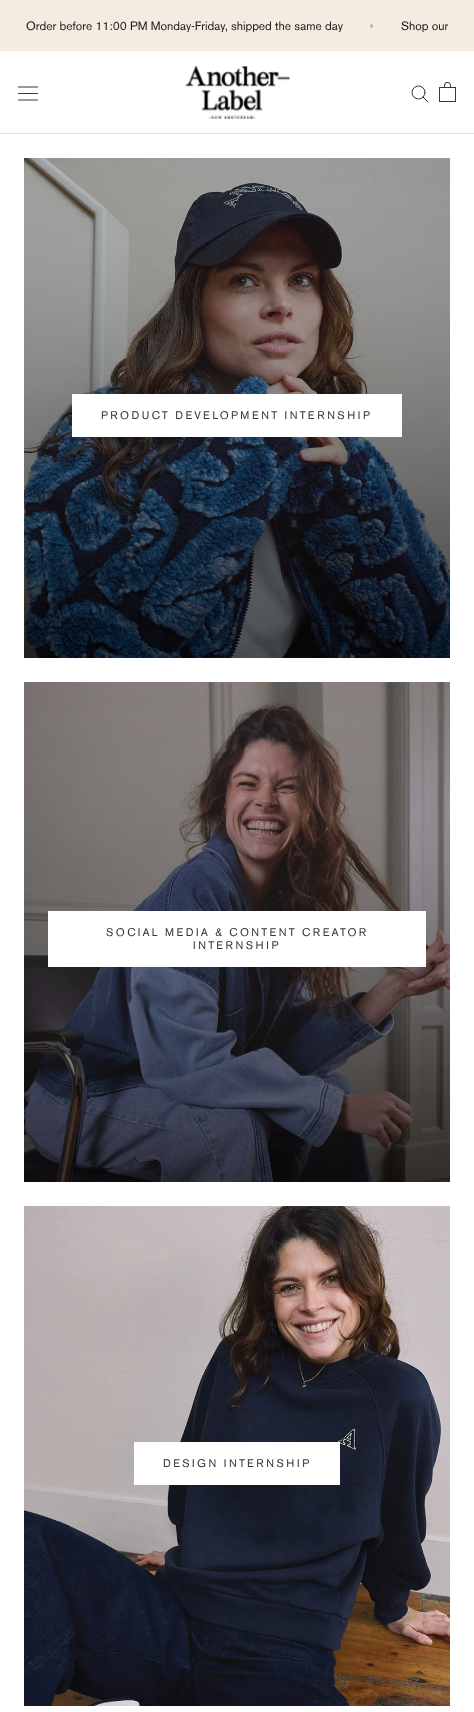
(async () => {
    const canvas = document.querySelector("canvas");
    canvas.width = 474;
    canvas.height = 1712;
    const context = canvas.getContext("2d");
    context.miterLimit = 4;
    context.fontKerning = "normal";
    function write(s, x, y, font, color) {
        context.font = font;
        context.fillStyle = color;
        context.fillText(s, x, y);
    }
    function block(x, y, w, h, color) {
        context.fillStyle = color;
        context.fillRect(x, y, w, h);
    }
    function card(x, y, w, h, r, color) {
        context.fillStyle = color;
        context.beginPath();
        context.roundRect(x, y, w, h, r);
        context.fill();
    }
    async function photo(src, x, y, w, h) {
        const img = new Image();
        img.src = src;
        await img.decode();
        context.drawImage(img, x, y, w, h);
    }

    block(0, 0, 474, 1712, "rgb(255, 255, 255)");
    block(0, 0, 474, 51, "rgb(244, 235, 225)");
    context.save();
    context.beginPath();
    context.rect(26, 20, 422, 12);
    context.clip();
    write("Order before 11:00 PM Monday-Friday, shipped the same day", 26, 30, "12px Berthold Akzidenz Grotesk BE", "rgb(26, 26, 26)");
    context.restore();
    card(370, 24, 3, 4, 1.5, "rgb(186, 186, 186)");
    context.save();
    context.beginPath();
    context.rect(26, 20, 422, 12);
    context.clip();
    write("Shop our", 401, 30, "12px Berthold Akzidenz Grotesk BE", "rgb(26, 26, 26)");
    context.restore();
    block(0, 133, 474, 1, "rgb(225, 225, 225)");
    await photo("media/1.png", 18, 86, 20, 15);
    await photo("media/2.png", 185, 66, 105, 53);
    context.beginPath();
    context.moveTo(428, 102);
    context.lineTo(423, 97);
    context.strokeStyle = "rgb(54, 54, 54)";
    context.lineCap = "square";
    context.stroke();
    context.beginPath();
    context.arc(418.5, 92.5, 6.5, 0, Math.PI * 2);
    context.stroke();
    await photo("media/3.png", 439, 82, 17, 20);
    await photo("media/4.png", 24, 158, 426, 500);
    context.strokeStyle = "rgb(255, 255, 255)";
    context.strokeRect(72.5, 394.5, 329, 42);
    block(73, 395, 328, 41, "rgb(255, 255, 255)");
    context.letterSpacing = "2.2px";
    write("PRODUCT DEVELOPMENT INTERNSHIP", 101, 419, "11px Berthold Akzidenz Grotesk BE", "rgb(54, 54, 54)");
    await photo("media/5.png", 24, 682, 426, 500);
    context.strokeRect(48.5, 911.5, 377, 55);
    block(49, 912, 376, 54, "rgb(255, 255, 255)");
    write("SOCIAL MEDIA & CONTENT CREATOR", 106, 936, "11px Berthold Akzidenz Grotesk BE", "rgb(54, 54, 54)");
    write("INTERNSHIP", 193, 949, "11px Berthold Akzidenz Grotesk BE", "rgb(54, 54, 54)");
    await photo("media/6.png", 24, 1206, 426, 500);
    context.strokeRect(134.5, 1442.5, 205, 42);
    block(135, 1443, 204, 41, "rgb(255, 255, 255)");
    write("DESIGN INTERNSHIP", 163, 1467, "11px Berthold Akzidenz Grotesk BE", "rgb(54, 54, 54)");
})();
